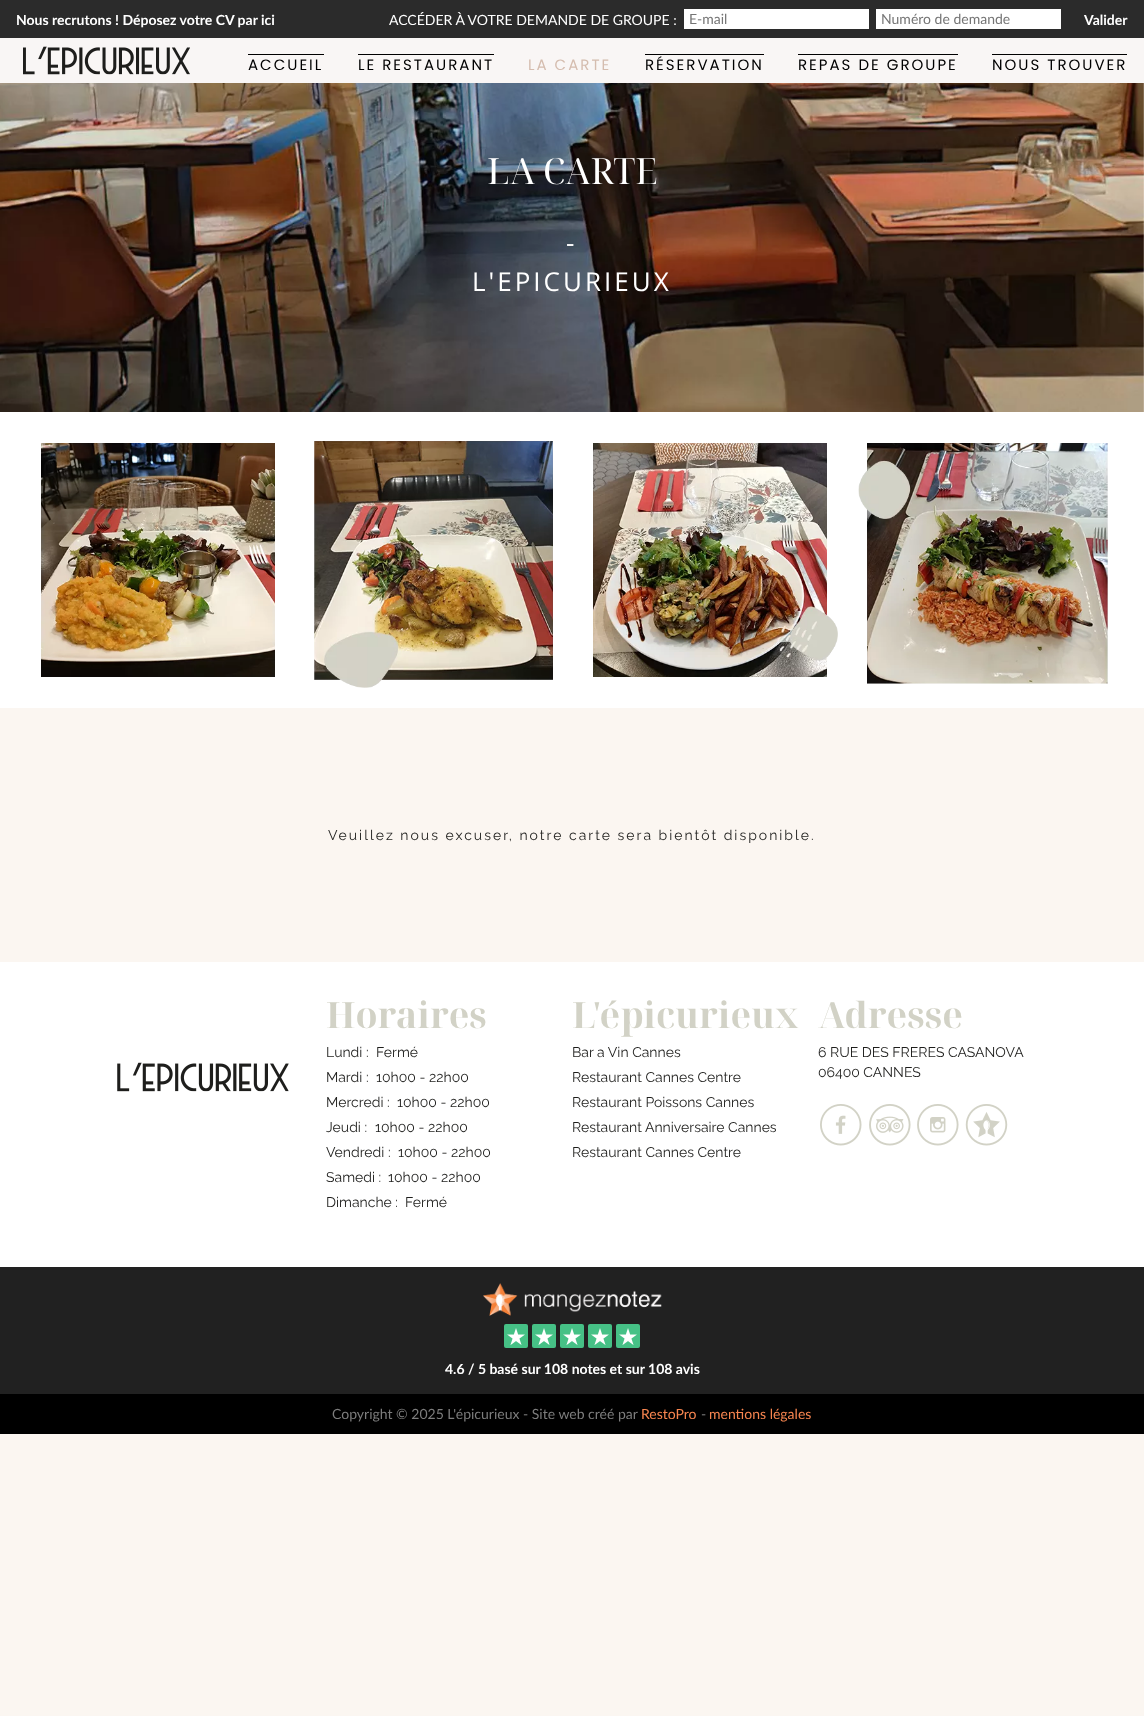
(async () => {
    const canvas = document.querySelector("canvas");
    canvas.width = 1144;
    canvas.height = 1716;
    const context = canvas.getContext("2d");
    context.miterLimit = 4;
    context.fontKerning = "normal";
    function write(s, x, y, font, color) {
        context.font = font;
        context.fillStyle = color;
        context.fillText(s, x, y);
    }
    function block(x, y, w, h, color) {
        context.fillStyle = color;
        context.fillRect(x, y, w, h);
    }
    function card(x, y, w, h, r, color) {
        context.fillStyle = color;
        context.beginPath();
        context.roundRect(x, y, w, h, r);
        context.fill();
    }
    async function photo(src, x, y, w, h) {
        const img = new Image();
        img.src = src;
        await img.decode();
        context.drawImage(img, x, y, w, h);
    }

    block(0, 0, 1144, 1716, "rgb(251, 246, 241)");
    block(0, 0, 1144, 38, "rgb(43, 43, 43)");
    write("Nous recrutons ! Déposez votre CV par ici", 16, 25, "bold 14px Lato", "rgb(255, 255, 255)");
    write("ACCÉDER À VOTRE DEMANDE DE GROUPE :", 389, 25, "14px Lato", "rgb(255, 255, 255)");
    block(684, 9, 185, 20, "rgb(255, 255, 255)");
    write("E-mail", 689, 24, "14px Lato", "rgb(117, 117, 117)");
    block(876, 9, 185, 20, "rgb(255, 255, 255)");
    write("Numéro de demande", 881, 24, "14px Lato", "rgb(117, 117, 117)");
    write("Valider", 1084, 25, "bold 14px Lato", "rgb(255, 255, 255)");
    block(0, 38, 1144, 45, "rgb(249, 246, 245)");
    await photo("media/1.png", 23, 46, 167, 29);
    context.letterSpacing = "2px";
    write("ACCUEIL", 248, 70, "15px Poppins", "rgb(0, 0, 0)");
    block(248, 54, 76, 1, "rgb(0, 0, 0)");
    write("LE RESTAURANT", 358, 70, "15px Poppins", "rgb(0, 0, 0)");
    block(358, 54, 136, 1, "rgb(0, 0, 0)");
    write("LA CARTE", 528, 70, "15px Poppins", "rgb(213, 189, 175)");
    write("RÉSERVATION", 645, 70, "15px Poppins", "rgb(0, 0, 0)");
    block(645, 54, 119, 1, "rgb(0, 0, 0)");
    write("REPAS DE GROUPE", 798, 70, "15px Poppins", "rgb(0, 0, 0)");
    block(798, 54, 160, 1, "rgb(0, 0, 0)");
    write("NOUS TROUVER", 992, 70, "15px Poppins", "rgb(0, 0, 0)");
    block(992, 54, 135, 1, "rgb(0, 0, 0)");
    await photo("media/2.png", 0, 83, 1144, 329);
    context.letterSpacing = "0px";
    write("LA CARTE", 487, 184, "36px Noto Serif Display", "rgb(255, 255, 255)");
    context.letterSpacing = "3px";
    write("-", 566, 252, "26px Open Sans", "rgb(255, 255, 255)");
    write("L'EPICURIEUX", 472, 291, "26px Open Sans", "rgb(255, 255, 255)");
    block(0, 412, 1144, 296, "rgb(255, 255, 255)");
    await photo("media/3.png", 41, 443, 234, 234);
    await photo("media/4.png", 314, 441, 239, 247);
    await photo("media/5.png", 593, 443, 245, 234);
    await photo("media/6.png", 858, 443, 250, 241);
    context.letterSpacing = "2px";
    write("Veuillez nous excuser, notre carte sera bientôt disponible.", 328, 840, "100 14px Raleway", "rgb(30, 30, 28)");
    block(0, 962, 1144, 305, "rgb(255, 255, 255)");
    await photo("media/7.png", 117, 1062, 172, 30);
    context.letterSpacing = "0px";
    write("Horaires", 326, 1028, "bold 36px Noto Serif Display", "rgb(210, 210, 198)");
    write("Lundi :", 326, 1057, "100 14px Raleway", "rgb(30, 30, 28)");
    write("Fermé", 376, 1057, "100 14px Raleway", "rgb(30, 30, 28)");
    write("Mardi :", 326, 1082, "100 14px Raleway", "rgb(30, 30, 28)");
    write("10h00 - 22h00", 376, 1082, "100 14px Raleway", "rgb(30, 30, 28)");
    write("Mercredi :", 326, 1107, "100 14px Raleway", "rgb(30, 30, 28)");
    write("10h00 - 22h00", 397, 1107, "100 14px Raleway", "rgb(30, 30, 28)");
    write("Jeudi :", 326, 1132, "100 14px Raleway", "rgb(30, 30, 28)");
    write("10h00 - 22h00", 375, 1132, "100 14px Raleway", "rgb(30, 30, 28)");
    write("Vendredi :", 326, 1157, "100 14px Raleway", "rgb(30, 30, 28)");
    write("10h00 - 22h00", 398, 1157, "100 14px Raleway", "rgb(30, 30, 28)");
    write("Samedi :", 326, 1182, "100 14px Raleway", "rgb(30, 30, 28)");
    write("10h00 - 22h00", 388, 1182, "100 14px Raleway", "rgb(30, 30, 28)");
    write("Dimanche :", 326, 1207, "100 14px Raleway", "rgb(30, 30, 28)");
    write("Fermé", 405, 1207, "100 14px Raleway", "rgb(30, 30, 28)");
    write("L'épicurieux", 572, 1028, "bold 36px Noto Serif Display", "rgb(210, 210, 198)");
    write("Bar a Vin Cannes", 572, 1057, "100 14px Raleway", "rgb(30, 30, 28)");
    write("Restaurant Cannes Centre", 572, 1082, "100 14px Raleway", "rgb(30, 30, 28)");
    write("Restaurant Poissons Cannes", 572, 1107, "100 14px Raleway", "rgb(30, 30, 28)");
    write("Restaurant Anniversaire Cannes", 572, 1132, "100 14px Raleway", "rgb(30, 30, 28)");
    write("Restaurant Cannes Centre", 572, 1157, "100 14px Raleway", "rgb(30, 30, 28)");
    write("Adresse", 818, 1028, "bold 36px Noto Serif Display", "rgb(210, 210, 198)");
    write("6 RUE DES FRERES CASANOVA", 818, 1057, "100 14px Raleway", "rgb(30, 30, 28)");
    write("06400 CANNES", 818, 1077, "100 14px Raleway", "rgb(30, 30, 28)");
    await photo("media/8.png", 820, 1104, 42, 42);
    await photo("media/9.png", 869, 1104, 42, 42);
    await photo("media/10.png", 917, 1104, 42, 42);
    await photo("media/11.png", 965, 1104, 43, 42);
    block(0, 1267, 1144, 127, "rgb(33, 33, 33)");
    await photo("media/12.png", 483, 1283, 179, 33);
    card(504, 1324, 24, 24, 2, "rgb(70, 193, 134)");
    card(532, 1324, 24, 24, 2, "rgb(70, 193, 134)");
    card(560, 1324, 24, 24, 2, "rgb(70, 193, 134)");
    card(588, 1324, 24, 24, 2, "rgb(70, 193, 134)");
    card(616, 1324, 24, 24, 2, "rgb(70, 193, 134)");
    await photo("media/13.png", 507, 1328, 18, 17);
    await photo("media/13.png", 535, 1328, 18, 17);
    await photo("media/13.png", 563, 1328, 18, 17);
    await photo("media/13.png", 591, 1328, 18, 17);
    await photo("media/13.png", 619, 1328, 18, 17);
    write("4.6 / 5 basé sur 108 notes et sur 108 avis", 445, 1374, "bold 14px Lato", "rgb(255, 255, 255)");
    block(0, 1394, 1144, 40, "rgb(0, 0, 0)");
    write("Copyright © 2025 L'épicurieux - Site web créé par", 332, 1419, "14px Lato", "rgb(125, 125, 125)");
    write("RestoPro", 641, 1419, "14px Lato", "rgb(248, 134, 80)");
    write("-", 701, 1419, "14px Lato", "rgb(125, 125, 125)");
    write("mentions légales", 709, 1419, "14px Lato", "rgb(248, 134, 80)");
})();
